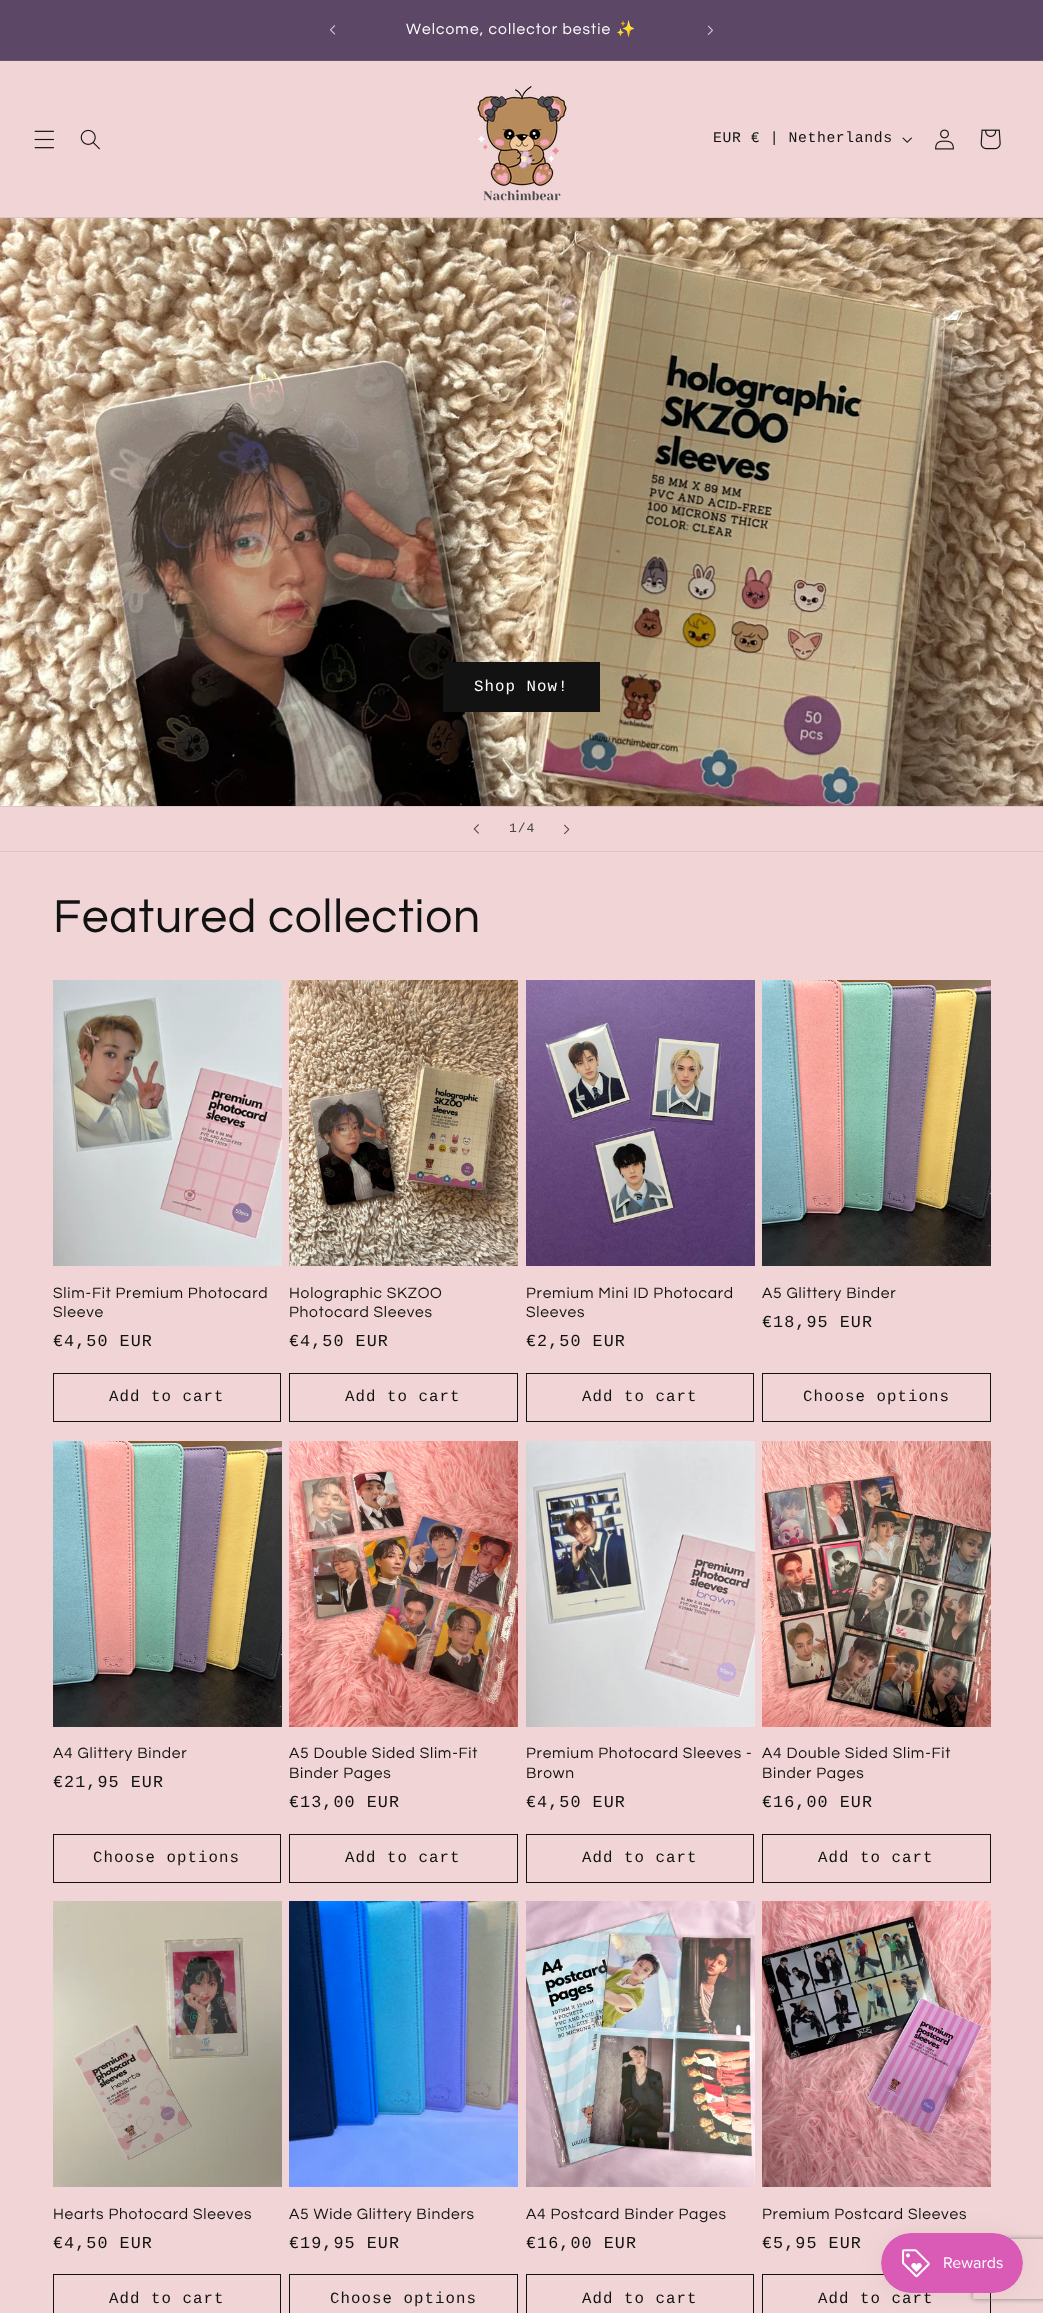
(async () => {
    const canvas = document.querySelector("canvas");
    canvas.width = 1043;
    canvas.height = 2313;
    const context = canvas.getContext("2d");
    context.miterLimit = 4;
    context.fontKerning = "none";
    function write(s, x, y, font, color) {
        context.font = font;
        context.fillStyle = color;
        context.fillText(s, x, y);
    }
    function block(x, y, w, h, color) {
        context.fillStyle = color;
        context.fillRect(x, y, w, h);
    }
    async function photo(src, x, y, w, h) {
        const img = new Image();
        img.src = src;
        await img.decode();
        context.drawImage(img, x, y, w, h);
    }

    block(0, 0, 1043, 2313, "rgb(241, 212, 213)");
    block(0, 0, 1043, 60, "rgb(92, 71, 102)");
    block(0, 60, 1043, 1, "rgb(105, 86, 114)");
    await photo("media/1.png", 330, 25, 6, 10);
    context.letterSpacing = "1.05px";
    write("Welcome, collector bestie", 406, 34, "15.6px Questrial", "rgb(255, 255, 255)");
    write("✨", 616, 34, "15.6px Noto Color Emoji", "rgb(255, 255, 255)");
    await photo("media/2.png", 707, 25, 6, 10);
    block(0, 217, 1043, 1, "rgb(223, 196, 197)");
    await photo("media/3.png", 34, 130, 20, 19);
    await photo("media/4.png", 80, 129, 20, 21);
    await photo("media/5.png", 477, 86, 90, 115);
    context.letterSpacing = "0.6px";
    write("EUR € | Netherlands", 713, 142, "14.75px Liberation Mono", "rgb(18, 18, 18)");
    await photo("media/6.png", 902, 137, 10, 6);
    await photo("media/7.png", 935, 129, 19, 21);
    await photo("media/8.png", 980, 129, 21, 21);
    await photo("media/9.png", 0, 218, 1043, 588);
    block(443, 662, 157, 50, "rgb(18, 18, 18)");
    context.letterSpacing = "1.05px";
    write("Shop Now!", 474, 691, "15.75px Liberation Mono", "rgb(255, 255, 255)");
    block(0, 806, 1043, 1, "rgb(223, 196, 197)");
    block(0, 851, 1043, 1, "rgb(223, 196, 197)");
    await photo("media/10.png", 473, 824, 6, 10);
    context.letterSpacing = "1px";
    write("1/4", 509, 832, "13px Liberation Mono", "rgb(74, 67, 67)");
    await photo("media/11.png", 564, 824, 6, 10);
    context.letterSpacing = "0.75px";
    write("Featured collection", 53, 932, "48px Questrial", "rgb(18, 18, 18)");
    await photo("media/12.png", 53, 980, 229, 286);
    write("Slim-Fit Premium Photocard", 53, 1298, "15.6px Questrial", "rgb(18, 18, 18)");
    write("Sleeve", 53, 1317, "15.6px Questrial", "rgb(18, 18, 18)");
    context.letterSpacing = "1.05px";
    write("€4,50 EUR", 53, 1346, "16.75px Liberation Mono", "rgb(18, 18, 18)");
    context.strokeStyle = "rgb(18, 18, 18)";
    context.strokeRect(53.5, 1373.5, 227, 48);
    write("Add to cart", 109, 1401, "15.75px Liberation Mono", "rgb(18, 18, 18)");
    await photo("media/13.png", 289, 980, 229, 286);
    context.letterSpacing = "0.75px";
    write("Holographic SKZOO", 289, 1298, "15.6px Questrial", "rgb(18, 18, 18)");
    write("Photocard Sleeves", 289, 1317, "15.6px Questrial", "rgb(18, 18, 18)");
    context.letterSpacing = "1.05px";
    write("€4,50 EUR", 289, 1346, "16.75px Liberation Mono", "rgb(18, 18, 18)");
    context.strokeRect(289.5, 1373.5, 228, 48);
    write("Add to cart", 345, 1401, "15.75px Liberation Mono", "rgb(18, 18, 18)");
    await photo("media/14.png", 526, 980, 229, 286);
    context.letterSpacing = "0.75px";
    write("Premium Mini ID Photocard", 526, 1298, "15.6px Questrial", "rgb(18, 18, 18)");
    write("Sleeves", 526, 1317, "15.6px Questrial", "rgb(18, 18, 18)");
    context.letterSpacing = "1.05px";
    write("€2,50 EUR", 526, 1346, "16.75px Liberation Mono", "rgb(18, 18, 18)");
    context.strokeRect(526.5, 1373.5, 227, 48);
    write("Add to cart", 582, 1401, "15.75px Liberation Mono", "rgb(18, 18, 18)");
    await photo("media/15.png", 762, 980, 229, 286);
    context.letterSpacing = "0.75px";
    write("A5 Glittery Binder", 762, 1298, "15.6px Questrial", "rgb(18, 18, 18)");
    context.letterSpacing = "1.05px";
    write("€18,95 EUR", 762, 1327, "16.75px Liberation Mono", "rgb(18, 18, 18)");
    context.strokeRect(762.5, 1373.5, 228, 48);
    write("Choose options", 803, 1401, "15.75px Liberation Mono", "rgb(18, 18, 18)");
    await photo("media/16.png", 53, 1441, 229, 286);
    context.letterSpacing = "0.75px";
    write("A4 Glittery Binder", 53, 1758, "15.6px Questrial", "rgb(18, 18, 18)");
    context.letterSpacing = "1.05px";
    write("€21,95 EUR", 53, 1787, "16.75px Liberation Mono", "rgb(18, 18, 18)");
    context.strokeRect(53.5, 1834.5, 227, 48);
    write("Choose options", 93, 1862, "15.75px Liberation Mono", "rgb(18, 18, 18)");
    await photo("media/17.png", 289, 1441, 229, 286);
    context.letterSpacing = "0.75px";
    write("A5 Double Sided Slim-Fit", 289, 1758, "15.6px Questrial", "rgb(18, 18, 18)");
    write("Binder Pages", 289, 1778, "15.6px Questrial", "rgb(18, 18, 18)");
    context.letterSpacing = "1.05px";
    write("€13,00 EUR", 289, 1807, "16.75px Liberation Mono", "rgb(18, 18, 18)");
    context.strokeRect(289.5, 1834.5, 228, 48);
    write("Add to cart", 345, 1862, "15.75px Liberation Mono", "rgb(18, 18, 18)");
    await photo("media/18.png", 526, 1441, 229, 286);
    context.letterSpacing = "0.75px";
    write("Premium Photocard Sleeves -", 526, 1758, "15.6px Questrial", "rgb(18, 18, 18)");
    write("Brown", 526, 1778, "15.6px Questrial", "rgb(18, 18, 18)");
    context.letterSpacing = "1.05px";
    write("€4,50 EUR", 526, 1807, "16.75px Liberation Mono", "rgb(18, 18, 18)");
    context.strokeRect(526.5, 1834.5, 227, 48);
    write("Add to cart", 582, 1862, "15.75px Liberation Mono", "rgb(18, 18, 18)");
    await photo("media/19.png", 762, 1441, 229, 286);
    context.letterSpacing = "0.75px";
    write("A4 Double Sided Slim-Fit", 762, 1758, "15.6px Questrial", "rgb(18, 18, 18)");
    write("Binder Pages", 762, 1778, "15.6px Questrial", "rgb(18, 18, 18)");
    context.letterSpacing = "1.05px";
    write("€16,00 EUR", 762, 1807, "16.75px Liberation Mono", "rgb(18, 18, 18)");
    context.strokeRect(762.5, 1834.5, 228, 48);
    write("Add to cart", 818, 1862, "15.75px Liberation Mono", "rgb(18, 18, 18)");
    await photo("media/20.png", 53, 1901, 229, 286);
    context.letterSpacing = "0.75px";
    write("Hearts Photocard Sleeves", 53, 2219, "15.6px Questrial", "rgb(18, 18, 18)");
    context.letterSpacing = "1.05px";
    write("€4,50 EUR", 53, 2248, "16.75px Liberation Mono", "rgb(18, 18, 18)");
    context.strokeRect(53.5, 2274.5, 227, 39);
    write("Add to cart", 109, 2303, "15.75px Liberation Mono", "rgb(18, 18, 18)");
    await photo("media/21.png", 289, 1901, 229, 286);
    context.letterSpacing = "0.75px";
    write("A5 Wide Glittery Binders", 289, 2219, "15.6px Questrial", "rgb(18, 18, 18)");
    context.letterSpacing = "1.05px";
    write("€19,95 EUR", 289, 2248, "16.75px Liberation Mono", "rgb(18, 18, 18)");
    context.strokeRect(289.5, 2274.5, 228, 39);
    write("Choose options", 330, 2303, "15.75px Liberation Mono", "rgb(18, 18, 18)");
    await photo("media/22.png", 526, 1901, 229, 286);
    context.letterSpacing = "0.75px";
    write("A4 Postcard Binder Pages", 526, 2219, "15.6px Questrial", "rgb(18, 18, 18)");
    context.letterSpacing = "1.05px";
    write("€16,00 EUR", 526, 2248, "16.75px Liberation Mono", "rgb(18, 18, 18)");
    context.strokeRect(526.5, 2274.5, 227, 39);
    write("Add to cart", 582, 2303, "15.75px Liberation Mono", "rgb(18, 18, 18)");
    await photo("media/23.png", 762, 1901, 229, 286);
    context.letterSpacing = "0.75px";
    write("Premium Postcard Sleeves", 762, 2219, "15.6px Questrial", "rgb(18, 18, 18)");
    context.letterSpacing = "1.05px";
    write("€5,95 EUR", 762, 2248, "16.75px Liberation Mono", "rgb(18, 18, 18)");
    context.strokeRect(762.5, 2274.5, 228, 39);
    write("Add to cart", 818, 2303, "15.75px Liberation Mono", "rgb(18, 18, 18)");
    context.fillStyle = "rgba(0, 0, 0, 0.05)";
    context.filter = "blur(12.5px)";
    context.beginPath();
    context.roundRect(881, 2233, 142, 60, 30);
    context.fill();
    context.filter = "none";
    context.save();
    context.beginPath();
    context.moveTo(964, 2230);
    context.lineTo(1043, 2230);
    context.lineTo(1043, 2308);
    context.lineTo(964, 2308);
    context.closePath();
    context.moveTo(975, 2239);
    context.lineTo(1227, 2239);
    context.bezierCurveTo(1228, 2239, 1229, 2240, 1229, 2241);
    context.lineTo(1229, 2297);
    context.bezierCurveTo(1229, 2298, 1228, 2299, 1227, 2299);
    context.lineTo(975, 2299);
    context.bezierCurveTo(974, 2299, 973, 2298, 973, 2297);
    context.lineTo(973, 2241);
    context.bezierCurveTo(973, 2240, 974, 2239, 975, 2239);
    context.closePath();
    context.clip("evenodd");
    context.fillStyle = "rgb(128, 128, 128)";
    context.filter = "blur(2.5px)";
    context.beginPath();
    context.roundRect(973, 2239, 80, 60, 2);
    context.fill();
    context.filter = "none";
    context.restore();
    await photo("media/24.png", 881, 2233, 142, 60);
})();
